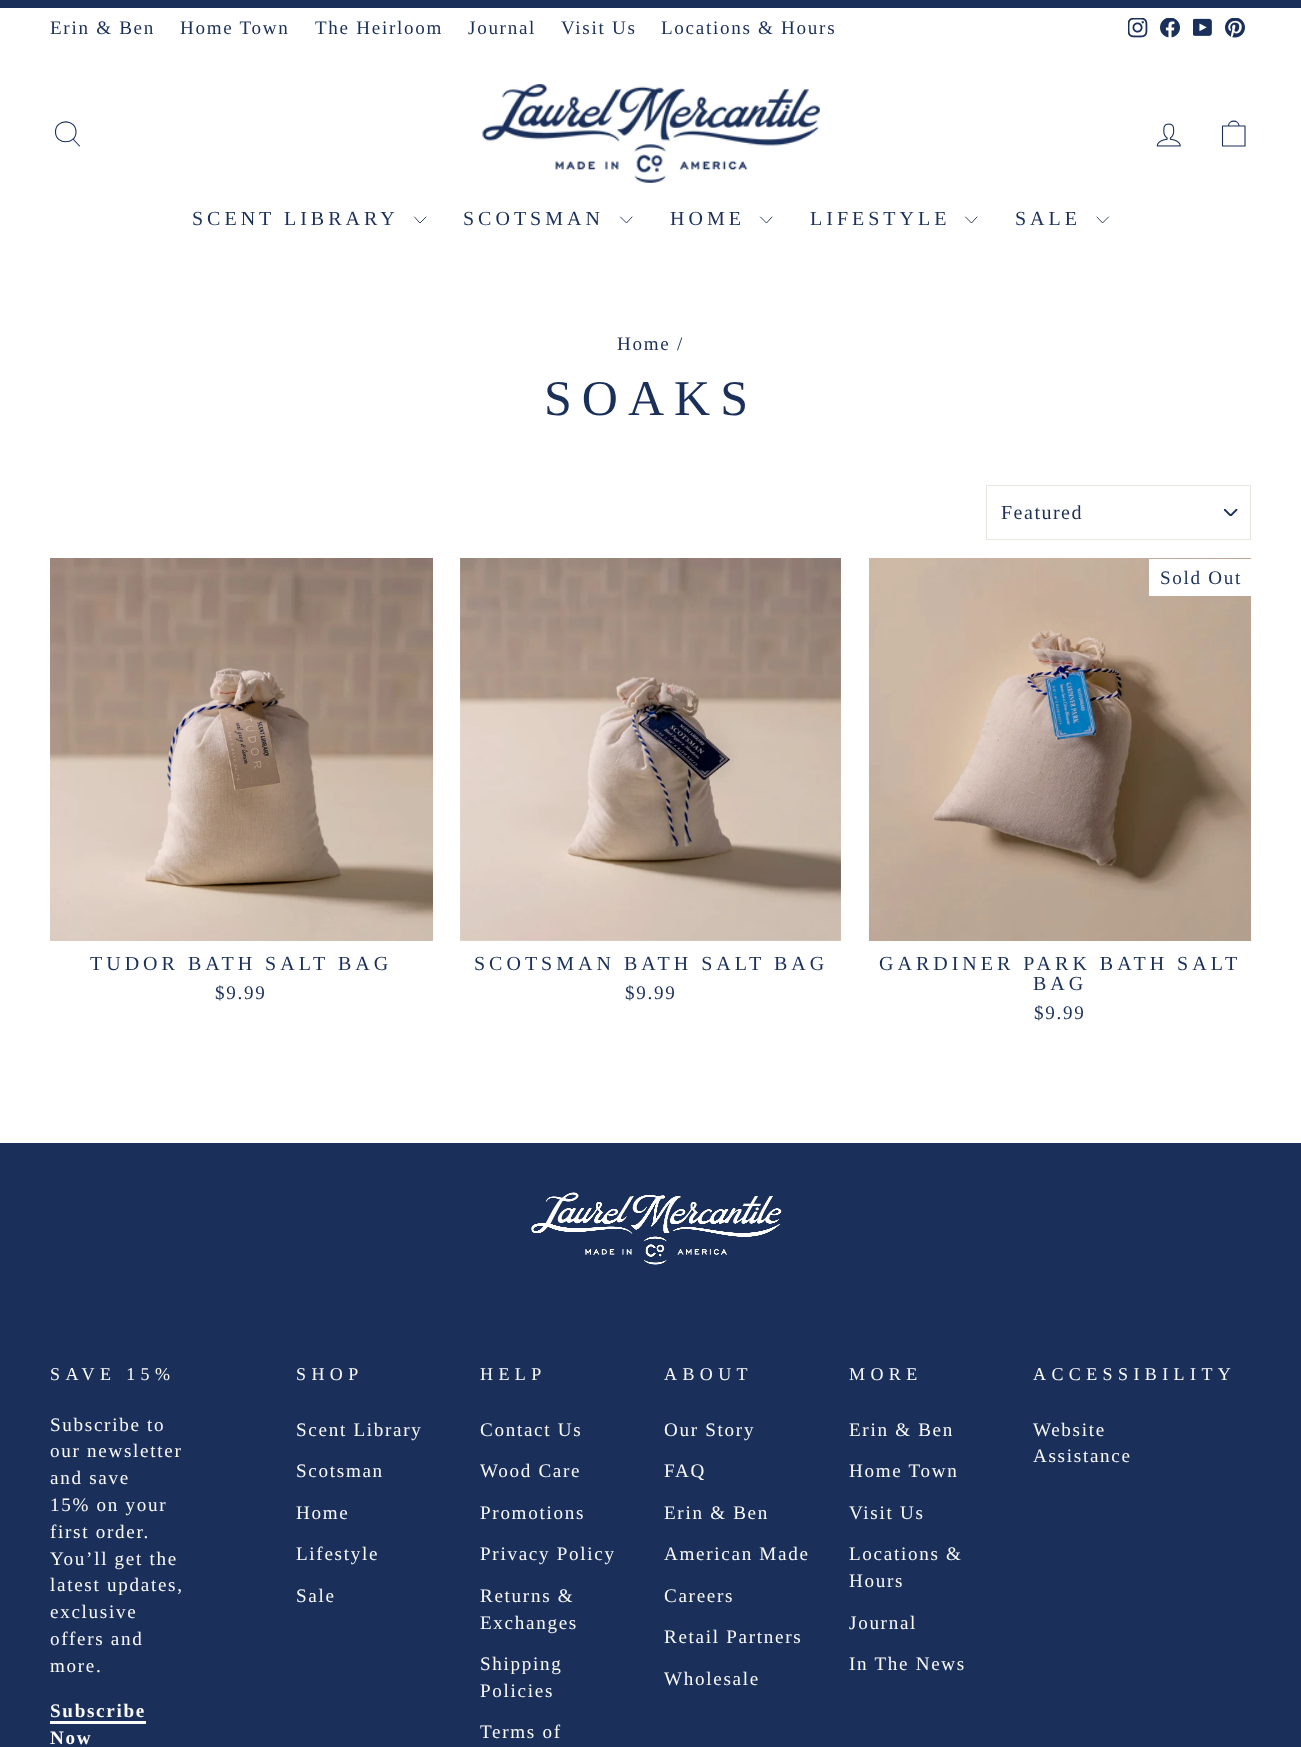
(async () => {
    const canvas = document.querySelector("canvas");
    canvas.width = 1301;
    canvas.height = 1747;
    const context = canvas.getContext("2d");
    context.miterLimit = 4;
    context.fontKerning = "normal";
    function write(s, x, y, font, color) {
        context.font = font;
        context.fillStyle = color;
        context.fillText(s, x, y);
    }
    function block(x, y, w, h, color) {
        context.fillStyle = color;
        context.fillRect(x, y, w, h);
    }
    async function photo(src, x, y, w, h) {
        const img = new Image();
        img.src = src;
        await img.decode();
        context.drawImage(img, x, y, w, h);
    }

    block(0, 0, 1301, 1747, "rgb(255, 255, 255)");
    block(0, 0, 1301, 8, "rgb(26, 47, 90)");
    context.letterSpacing = "1.7px";
    write("Erin & Ben", 50, 34, "19.1px Liberation Serif", "rgb(26, 47, 90)");
    write("Home Town", 180, 34, "19.1px Liberation Serif", "rgb(26, 47, 90)");
    write("The Heirloom", 315, 34, "19.1px Liberation Serif", "rgb(26, 47, 90)");
    write("Journal", 468, 34, "19.1px Liberation Serif", "rgb(26, 47, 90)");
    write("Visit Us", 561, 34, "19.1px Liberation Serif", "rgb(26, 47, 90)");
    write("Locations & Hours", 661, 34, "19.1px Liberation Serif", "rgb(26, 47, 90)");
    await photo("media/1.png", 1128, 18, 20, 20);
    await photo("media/2.png", 1160, 18, 20, 20);
    await photo("media/3.png", 1193, 18, 19, 18);
    await photo("media/4.png", 1225, 18, 20, 20);
    context.fillStyle = "rgba(0, 0, 0, 0.2)";
    context.filter = "blur(0.5px)";
    context.beginPath();
    context.rect(0, 48, 1301, 220);
    context.fill();
    context.filter = "none";
    block(0, 48, 1301, 220, "rgb(255, 255, 255)");
    context.beginPath();
    context.moveTo(76, 132);
    context.bezierCurveTo(76, 145, 55.5, 145, 55.5, 132);
    context.bezierCurveTo(55.5, 118.5, 76, 118.5, 76, 132);
    context.closePath();
    context.moveTo(79.5, 146);
    context.lineTo(73, 139);
    context.strokeStyle = "rgb(26, 47, 90)";
    context.lineWidth = 1.1;
    context.lineCap = "round";
    context.lineJoin = "round";
    context.stroke();
    await photo("media/5.png", 482, 84, 338, 99);
    await photo("media/6.png", 1156, 123, 25, 24);
    context.beginPath();
    context.moveTo(1222.5, 126);
    context.lineTo(1245, 126);
    context.lineTo(1245, 146);
    context.lineTo(1222.5, 146);
    context.closePath();
    context.moveTo(1228.5, 126);
    context.bezierCurveTo(1228.5, 119.5, 1239, 119.5, 1239, 126);
    context.stroke();
    context.letterSpacing = "4px";
    write("SCENT LIBRARY", 192, 225, "20px Liberation Serif", "rgb(26, 47, 90)");
    context.beginPath();
    context.moveTo(414.5, 217);
    context.lineTo(420, 223);
    context.lineTo(426, 217);
    context.lineWidth = 0.9;
    context.stroke();
    write("SCOTSMAN", 463, 225, "20px Liberation Serif", "rgb(26, 47, 90)");
    context.beginPath();
    context.moveTo(620.5, 217);
    context.lineTo(626.5, 223);
    context.lineTo(632, 217);
    context.stroke();
    write("HOME", 670, 225, "20px Liberation Serif", "rgb(26, 47, 90)");
    context.beginPath();
    context.moveTo(760.5, 217);
    context.lineTo(766.5, 223);
    context.lineTo(772, 217);
    context.stroke();
    write("LIFESTYLE", 810, 225, "20px Liberation Serif", "rgb(26, 47, 90)");
    context.beginPath();
    context.moveTo(965.5, 217);
    context.lineTo(971.5, 223);
    context.lineTo(977, 217);
    context.stroke();
    write("SALE", 1015, 225, "20px Liberation Serif", "rgb(26, 47, 90)");
    context.beginPath();
    context.moveTo(1097, 217);
    context.lineTo(1102.5, 223);
    context.lineTo(1108.5, 217);
    context.stroke();
    context.letterSpacing = "1.7px";
    write("Home /", 617, 350, "19.1px Liberation Serif", "rgb(26, 47, 90)");
    context.letterSpacing = "10px";
    write("SOAKS", 544, 415, "50px Liberation Serif", "rgb(26, 47, 90)");
    await photo("media/7.png", 1224, 509, 14, 7);
    context.strokeStyle = "rgb(232, 232, 225)";
    context.lineWidth = 1;
    context.lineJoin = "miter";
    context.strokeRect(986.5, 485.5, 264, 54);
    context.letterSpacing = "1.5px";
    write("Featured", 1001, 519, "20px Liberation Serif", "rgb(26, 47, 90)");
    await photo("media/8.png", 50, 558, 383, 383);
    context.letterSpacing = "4px";
    write("TUDOR BATH SALT BAG", 90, 970, "20px Liberation Serif", "rgb(26, 47, 90)");
    context.letterSpacing = "1.7px";
    write("$9.99", 215, 999, "19.1px Liberation Serif", "rgb(26, 47, 90)");
    await photo("media/9.png", 460, 558, 381, 383);
    context.letterSpacing = "4px";
    write("SCOTSMAN BATH SALT BAG", 474, 970, "20px Liberation Serif", "rgb(26, 47, 90)");
    context.letterSpacing = "1.7px";
    write("$9.99", 625, 999, "19.1px Liberation Serif", "rgb(26, 47, 90)");
    await photo("media/10.png", 869, 558, 382, 383);
    block(1149, 559, 102, 37, "rgb(255, 255, 255)");
    write("Sold Out", 1160, 584, "19.1px Liberation Serif", "rgb(26, 47, 90)");
    context.letterSpacing = "4px";
    write("GARDINER PARK BATH SALT", 879, 970, "20px Liberation Serif", "rgb(26, 47, 90)");
    write("BAG", 1033, 990, "20px Liberation Serif", "rgb(26, 47, 90)");
    context.letterSpacing = "1.7px";
    write("$9.99", 1034, 1019, "19.1px Liberation Serif", "rgb(26, 47, 90)");
    block(0, 1143, 1301, 604, "rgb(26, 47, 90)");
    await photo("media/11.png", 531, 1192, 251, 73);
    context.letterSpacing = "5.4px";
    write("SAVE 15%", 50, 1380, "18px Liberation Serif", "rgb(250, 250, 250)");
    context.letterSpacing = "1.7px";
    write("Subscribe to", 50, 1431, "19.1px Liberation Serif", "rgb(250, 250, 250)");
    write("our newsletter", 50, 1457, "19.1px Liberation Serif", "rgb(250, 250, 250)");
    write("and save", 50, 1484, "19.1px Liberation Serif", "rgb(250, 250, 250)");
    write("15% on your", 50, 1511, "19.1px Liberation Serif", "rgb(250, 250, 250)");
    write("first order.", 50, 1538, "19.1px Liberation Serif", "rgb(250, 250, 250)");
    write("You’ll get the", 50, 1565, "19.1px Liberation Serif", "rgb(250, 250, 250)");
    write("latest updates,", 50, 1591, "19.1px Liberation Serif", "rgb(250, 250, 250)");
    write("exclusive", 50, 1618, "19.1px Liberation Serif", "rgb(250, 250, 250)");
    write("offers and", 50, 1645, "19.1px Liberation Serif", "rgb(250, 250, 250)");
    write("more.", 50, 1672, "19.1px Liberation Serif", "rgb(250, 250, 250)");
    write("Subscribe", 50, 1717, "bold 19.1px Liberation Serif", "rgb(250, 250, 250)");
    block(50, 1721, 96, 3, "rgb(250, 250, 250)");
    write("Now", 50, 1744, "bold 19.1px Liberation Serif", "rgb(250, 250, 250)");
    context.letterSpacing = "5.4px";
    write("SHOP", 296, 1380, "18px Liberation Serif", "rgb(250, 250, 250)");
    context.letterSpacing = "1.7px";
    write("Scent Library", 296, 1436, "19.1px Liberation Serif", "rgb(250, 250, 250)");
    write("Scotsman", 296, 1477, "19.1px Liberation Serif", "rgb(250, 250, 250)");
    write("Home", 296, 1519, "19.1px Liberation Serif", "rgb(250, 250, 250)");
    write("Lifestyle", 296, 1560, "19.1px Liberation Serif", "rgb(250, 250, 250)");
    write("Sale", 296, 1602, "19.1px Liberation Serif", "rgb(250, 250, 250)");
    context.letterSpacing = "5.4px";
    write("HELP", 480, 1380, "18px Liberation Serif", "rgb(250, 250, 250)");
    context.letterSpacing = "1.7px";
    write("Contact Us", 480, 1436, "19.1px Liberation Serif", "rgb(250, 250, 250)");
    write("Wood Care", 480, 1477, "19.1px Liberation Serif", "rgb(250, 250, 250)");
    write("Promotions", 480, 1519, "19.1px Liberation Serif", "rgb(250, 250, 250)");
    write("Privacy Policy", 480, 1560, "19.1px Liberation Serif", "rgb(250, 250, 250)");
    write("Returns &", 480, 1602, "19.1px Liberation Serif", "rgb(250, 250, 250)");
    write("Exchanges", 480, 1629, "19.1px Liberation Serif", "rgb(250, 250, 250)");
    write("Shipping", 480, 1670, "19.1px Liberation Serif", "rgb(250, 250, 250)");
    write("Policies", 480, 1697, "19.1px Liberation Serif", "rgb(250, 250, 250)");
    write("Terms of", 480, 1738, "19.1px Liberation Serif", "rgb(250, 250, 250)");
    context.letterSpacing = "5.4px";
    write("ABOUT", 664, 1380, "18px Liberation Serif", "rgb(250, 250, 250)");
    context.letterSpacing = "1.7px";
    write("Our Story", 664, 1436, "19.1px Liberation Serif", "rgb(250, 250, 250)");
    write("FAQ", 664, 1477, "19.1px Liberation Serif", "rgb(250, 250, 250)");
    write("Erin & Ben", 664, 1519, "19.1px Liberation Serif", "rgb(250, 250, 250)");
    write("American Made", 664, 1560, "19.1px Liberation Serif", "rgb(250, 250, 250)");
    write("Careers", 664, 1602, "19.1px Liberation Serif", "rgb(250, 250, 250)");
    write("Retail Partners", 664, 1643, "19.1px Liberation Serif", "rgb(250, 250, 250)");
    write("Wholesale", 664, 1685, "19.1px Liberation Serif", "rgb(250, 250, 250)");
    context.letterSpacing = "5.4px";
    write("MORE", 849, 1380, "18px Liberation Serif", "rgb(250, 250, 250)");
    context.letterSpacing = "1.7px";
    write("Erin & Ben", 849, 1436, "19.1px Liberation Serif", "rgb(250, 250, 250)");
    write("Home Town", 849, 1477, "19.1px Liberation Serif", "rgb(250, 250, 250)");
    write("Visit Us", 849, 1519, "19.1px Liberation Serif", "rgb(250, 250, 250)");
    write("Locations &", 849, 1560, "19.1px Liberation Serif", "rgb(250, 250, 250)");
    write("Hours", 849, 1587, "19.1px Liberation Serif", "rgb(250, 250, 250)");
    write("Journal", 849, 1629, "19.1px Liberation Serif", "rgb(250, 250, 250)");
    write("In The News", 849, 1670, "19.1px Liberation Serif", "rgb(250, 250, 250)");
    context.letterSpacing = "5.4px";
    write("ACCESSIBILITY", 1033, 1380, "18px Liberation Serif", "rgb(250, 250, 250)");
    context.letterSpacing = "1.7px";
    write("Website", 1033, 1436, "19.1px Liberation Serif", "rgb(250, 250, 250)");
    write("Assistance", 1033, 1462, "19.1px Liberation Serif", "rgb(250, 250, 250)");
})();
